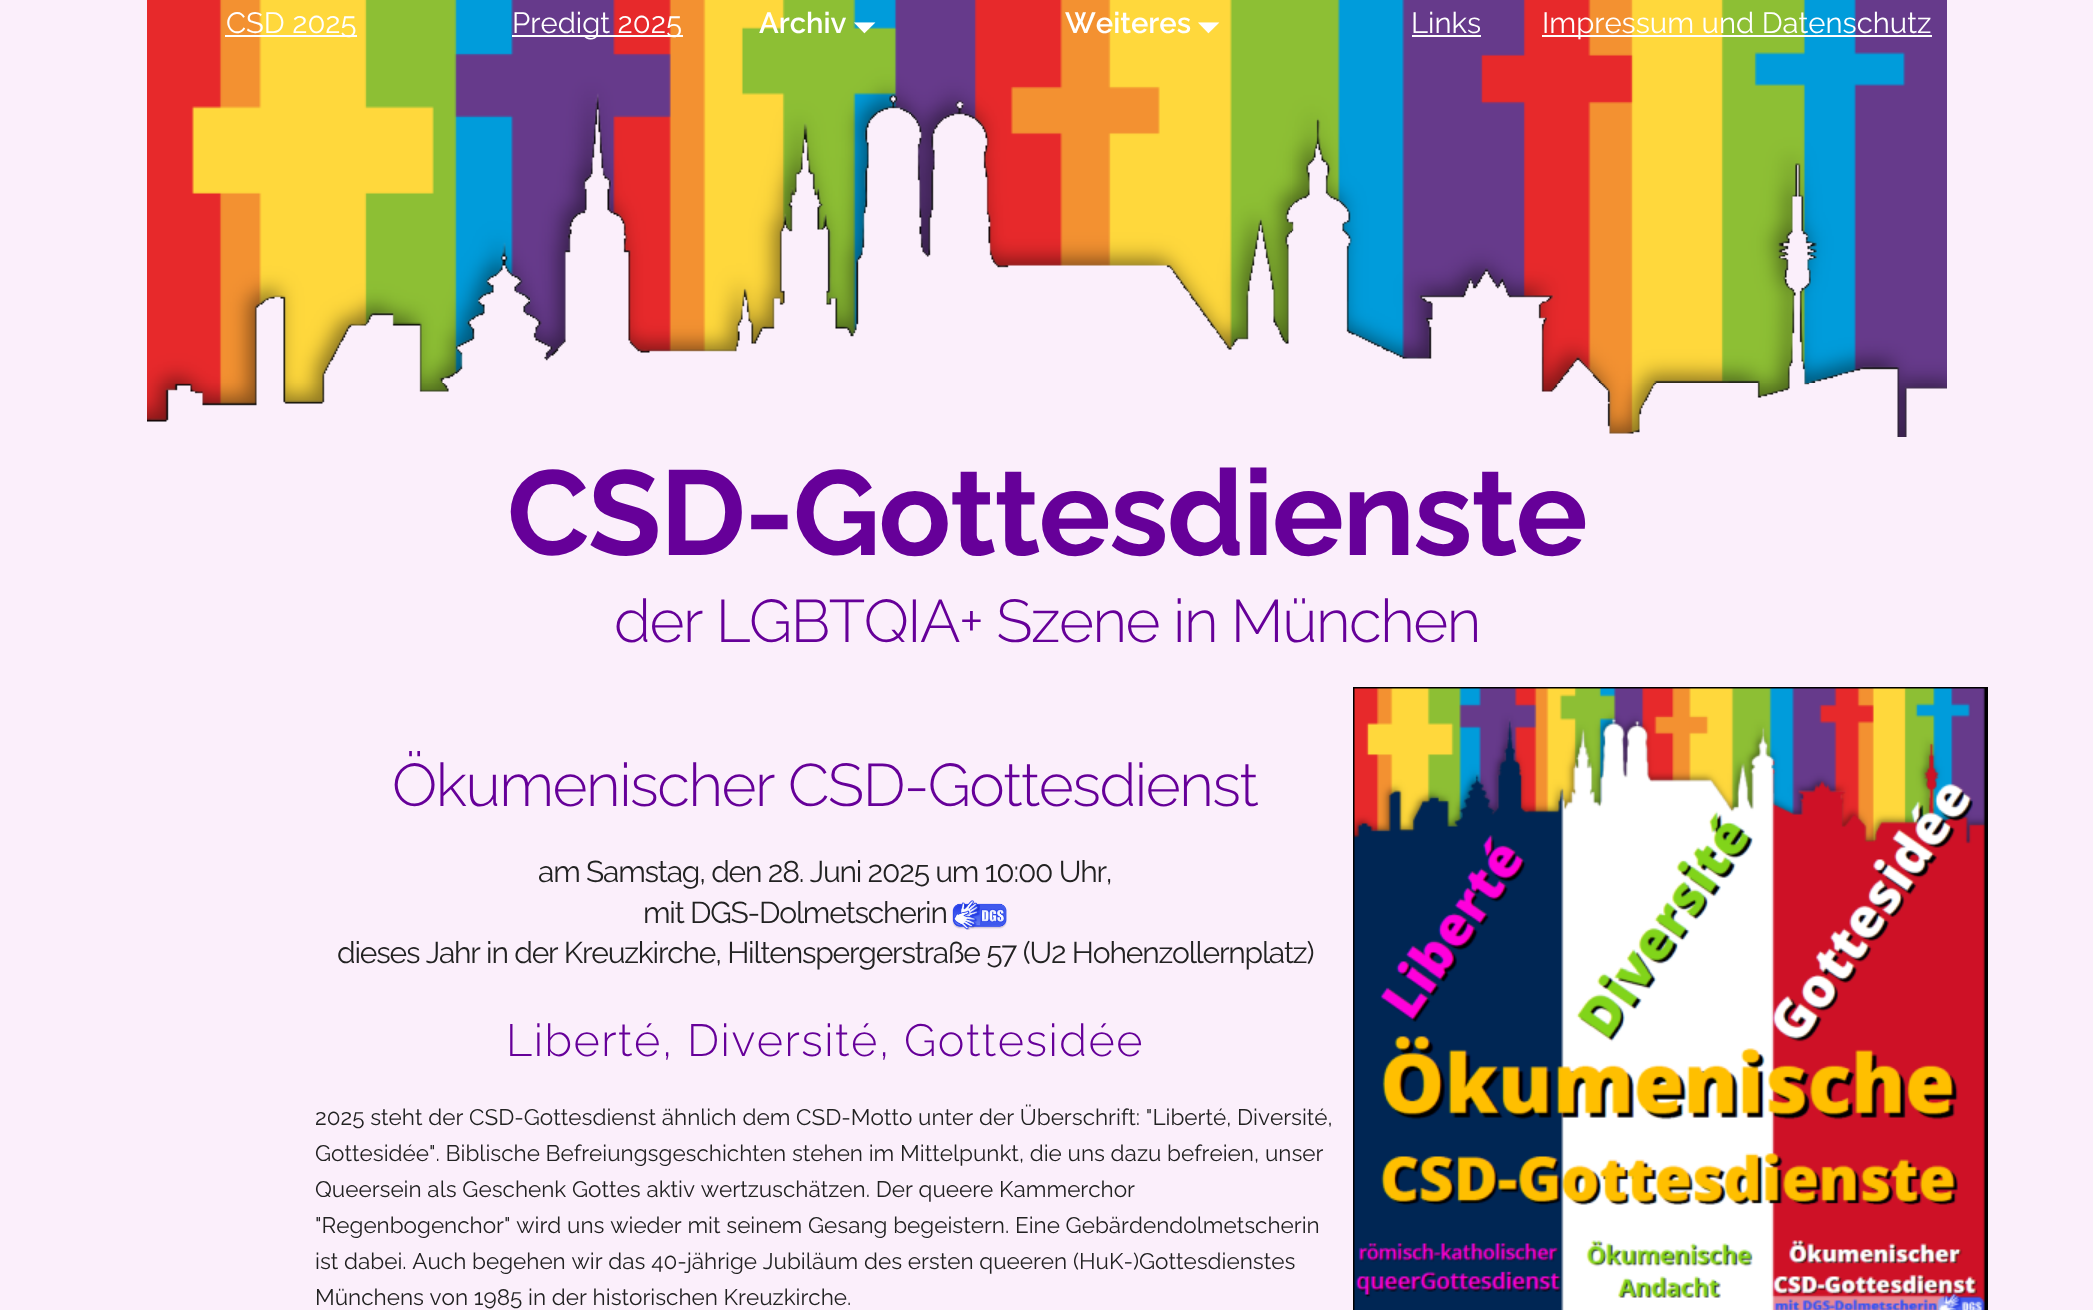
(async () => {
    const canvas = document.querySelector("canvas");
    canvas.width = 2093;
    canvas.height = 1310;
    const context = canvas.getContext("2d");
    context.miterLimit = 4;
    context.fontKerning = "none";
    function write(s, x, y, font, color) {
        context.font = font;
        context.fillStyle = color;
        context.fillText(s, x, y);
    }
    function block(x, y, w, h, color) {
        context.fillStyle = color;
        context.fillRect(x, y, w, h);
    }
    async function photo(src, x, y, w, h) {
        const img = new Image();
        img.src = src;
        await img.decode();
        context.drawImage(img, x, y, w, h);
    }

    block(0, 0, 2093, 1310, "rgb(251, 239, 251)");
    await photo("media/1.png", 147, 0, 1800, 437);
    block(225, 35, 132, 2, "rgb(255, 255, 255)");
    write("CSD 2025", 226, 33, "29.25px Raleway", "rgb(255, 255, 255)");
    block(512, 35, 171, 2, "rgb(255, 255, 255)");
    write("Predigt 2025", 512, 33, "29.25px Raleway", "rgb(255, 255, 255)");
    write("Archiv", 759, 33, "600 29.25px Raleway", "rgb(255, 255, 255)");
    write("🞃", 854, 33, "bold 29.25px FreeSans", "rgb(255, 255, 255)");
    write("Weiteres", 1065, 33, "600 29.25px Raleway", "rgb(255, 255, 255)");
    write("🞃", 1198, 33, "bold 29.25px FreeSans", "rgb(255, 255, 255)");
    write("Links", 1411, 33, "29.25px Raleway", "rgb(255, 255, 255)");
    block(1412, 35, 69, 2, "rgb(255, 255, 255)");
    block(1542, 35, 390, 2, "rgb(255, 255, 255)");
    write("Impressum und Datenschutz", 1542, 33, "29.25px Raleway", "rgb(255, 255, 255)");
    context.letterSpacing = "-1.5px";
    write("CSD-Gottesdienste", 507, 555, "bold 120px Raleway", "rgb(102, 0, 153)");
    write("der LGBTQIA+ Szene in München", 614, 642, "300 60px Raleway", "rgb(102, 0, 153)");
    write("Ökumenischer CSD-Gottesdienst", 392, 806, "300 60px Raleway", "rgb(102, 0, 153)");
    context.letterSpacing = "-1.2px";
    write("am Samstag, den 28. Juni 2025 um 10:00 Uhr,", 538, 882, "30px Raleway", "rgb(34, 34, 34)");
    write("mit DGS-Dolmetscherin", 643, 923, "30px Raleway", "rgb(34, 34, 34)");
    await photo("media/2.png", 952, 900, 55, 30);
    write("dieses Jahr in der Kreuzkirche, Hiltenspergerstraße 57 (U2 Hohenzollernplatz)", 337, 963, "30px Raleway", "rgb(34, 34, 34)");
    context.letterSpacing = "1.5px";
    write("Liberté, Diversité, Gottesidée", 506, 1056, "300 45px Raleway", "rgb(102, 0, 153)");
    context.letterSpacing = "0px";
    write("2025 steht der CSD-Gottesdienst ähnlich dem CSD-Motto unter der Überschrift: \"Liberté, Diversité,", 315, 1125, "22.5px Raleway", "rgb(34, 34, 34)");
    write("Gottesidée\". Biblische Befreiungsgeschichten stehen im Mittelpunkt, die uns dazu befreien,", 315, 1161, "22.5px Raleway", "rgb(34, 34, 34)");
    write("unser", 1265, 1161, "22.5px Raleway", "rgb(34, 34, 34)");
    write("Queersein als Geschenk Gottes aktiv wertzuschätzen. Der queere Kammerchor", 315, 1197, "22.5px Raleway", "rgb(34, 34, 34)");
    write("\"Regenbogenchor\" wird uns wieder mit seinem Gesang begeistern. Eine Gebärdendolmetscherin", 315, 1233, "22.5px Raleway", "rgb(34, 34, 34)");
    write("ist dabei. Auch begehen wir das 40-jährige Jubiläum des ersten queeren (HuK-)Gottesdienstes", 315, 1269, "22.5px Raleway", "rgb(34, 34, 34)");
    write("Münchens von 1985 in der historischen Kreuzkirche.", 315, 1305, "22.5px Raleway", "rgb(34, 34, 34)");
    context.strokeStyle = "rgb(0, 0, 0)";
    context.lineWidth = 2;
    context.strokeRect(1354, 688, 633, 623);
    await photo("media/3.png", 1354, 688, 632, 622);
})();
